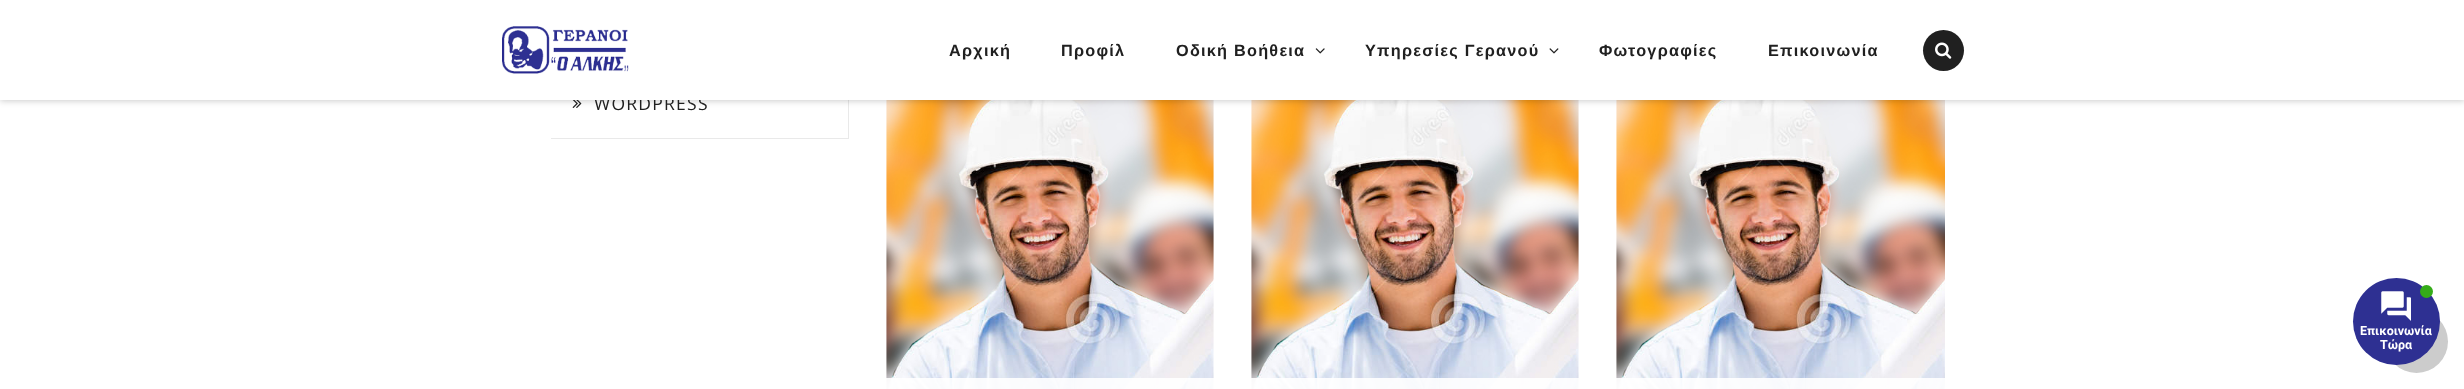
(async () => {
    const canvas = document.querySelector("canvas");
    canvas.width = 2464;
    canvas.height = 389;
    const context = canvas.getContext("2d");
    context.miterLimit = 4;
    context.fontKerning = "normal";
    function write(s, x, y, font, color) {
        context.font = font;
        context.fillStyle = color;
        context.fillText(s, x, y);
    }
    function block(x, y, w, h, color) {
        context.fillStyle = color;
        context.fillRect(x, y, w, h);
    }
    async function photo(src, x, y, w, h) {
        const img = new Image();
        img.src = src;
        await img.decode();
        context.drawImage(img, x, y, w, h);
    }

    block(0, 0, 2464, 389, "rgb(255, 255, 255)");
    block(848, 100, 1, 39, "rgb(233, 233, 233)");
    await photo("media/5.png", 572, 100, 10, 8);
    await photo("media/6.png", 886, 100, 328, 289);
    await photo("media/7.png", 1251, 100, 328, 289);
    await photo("media/8.png", 1616, 100, 329, 289);
    context.fillStyle = "rgba(0, 0, 0, 0.2)";
    context.filter = "blur(3px)";
    context.beginPath();
    context.rect(0, 1, 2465, 100);
    context.fill();
    context.filter = "none";
    context.letterSpacing = "1.25px";
    write("WORDPRESS", 594, 110, "17.5px Open Sans", "rgb(32, 32, 32)");
    block(0, 0, 2464, 100, "rgb(255, 255, 255)");
    await photo("media/1.png", 502, 26, 127, 48);
    write("Αρχική", 949, 56, "bold 16.25px Arimo", "rgb(32, 32, 32)");
    write("Προφίλ", 1061, 56, "bold 16.25px Arimo", "rgb(32, 32, 32)");
    write("Οδική Βοήθεια", 1176, 56, "bold 16.25px Arimo", "rgb(32, 32, 32)");
    await photo("media/2.png", 1315, 48, 10, 6);
    write("Υπηρεσίες Γερανού", 1365, 56, "bold 16.25px Arimo", "rgb(32, 32, 32)");
    await photo("media/3.png", 1549, 48, 10, 6);
    write("Φωτογραφίες", 1599, 56, "bold 16.25px Arimo", "rgb(32, 32, 32)");
    write("Επικοινωνία", 1768, 56, "bold 16.25px Arimo", "rgb(32, 32, 32)");
    context.beginPath();
    context.arc(1943.5, 50.5, 20.5, 0, Math.PI * 2);
    context.fill();
    await photo("media/4.png", 1935, 42, 17, 17);
    block(551, 138, 298, 1, "rgb(233, 233, 233)");
    block(886, 378, 328, 11, "rgba(255, 255, 255, 0.9)");
    block(1251, 378, 328, 11, "rgba(255, 255, 255, 0.9)");
    block(1616, 378, 329, 11, "rgba(255, 255, 255, 0.9)");
    context.fillStyle = "rgb(204, 204, 204)";
    context.beginPath();
    context.arc(2416.5, 341.5, 31.5, 0, Math.PI * 2);
    context.fill();
    context.fillStyle = "rgb(46, 48, 146)";
    context.beginPath();
    context.arc(2396.5, 321.5, 43.5, 0, Math.PI * 2);
    context.fill();
    context.fillStyle = "rgb(53, 172, 25)";
    context.beginPath();
    context.arc(2426.5, 291.5, 6.5, 0, Math.PI * 2);
    context.fill();
    await photo("media/9.png", 2381, 291, 30, 30);
    context.letterSpacing = "0px";
    write("Επικοινωνία", 2360, 335, "bold 12.5px Roboto", "rgb(255, 255, 255)");
    write("Τώρα", 2380, 349, "bold 12.5px Roboto", "rgb(255, 255, 255)");
})();
